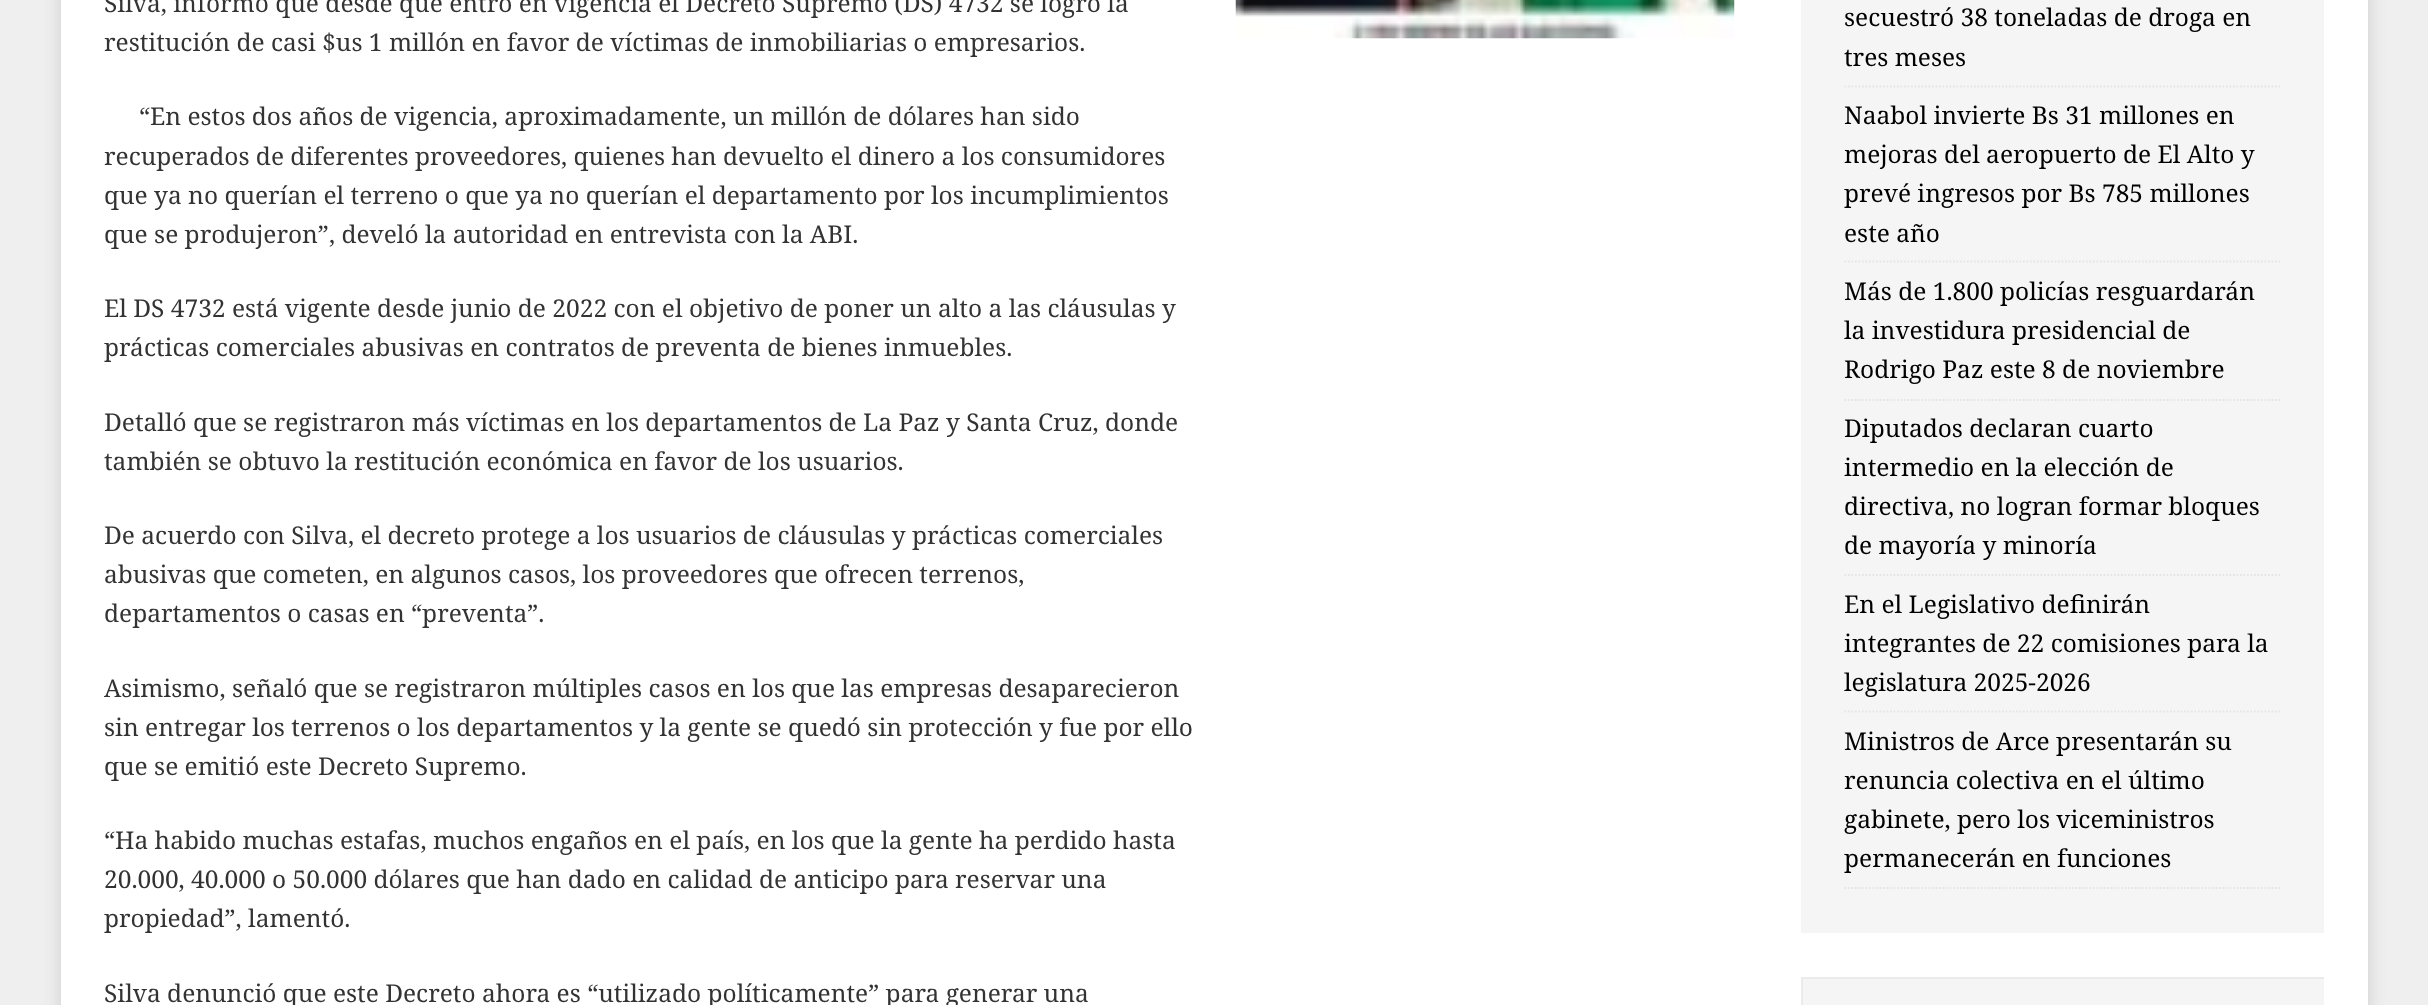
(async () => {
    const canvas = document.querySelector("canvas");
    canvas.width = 2428;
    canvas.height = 1005;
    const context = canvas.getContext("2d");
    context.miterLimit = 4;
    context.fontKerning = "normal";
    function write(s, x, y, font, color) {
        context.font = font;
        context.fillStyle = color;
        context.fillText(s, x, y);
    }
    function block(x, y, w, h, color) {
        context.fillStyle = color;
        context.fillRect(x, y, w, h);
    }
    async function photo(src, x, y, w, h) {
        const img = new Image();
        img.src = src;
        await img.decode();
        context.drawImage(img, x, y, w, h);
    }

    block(0, 0, 2428, 1005, "rgb(239, 239, 239)");
    context.fillStyle = "rgba(50, 50, 50, 0.17)";
    context.filter = "blur(9px)";
    context.beginPath();
    context.rect(61, -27, 2307, 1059);
    context.fill();
    context.filter = "none";
    block(61, 0, 2307, 1005, "rgb(255, 255, 255)");
    write("Silva, informó que desde que entró en vigencia el Decreto Supremo (DS) 4732 se logró la", 104, 12, "24.5px Noto Serif", "rgb(51, 51, 51)");
    write("restitución de casi $us 1 millón en favor de víctimas de inmobiliarias o empresarios.", 104, 51, "24.5px Noto Serif", "rgb(51, 51, 51)");
    write("“En estos dos años de vigencia, aproximadamente, un millón de dólares han sido", 139, 125, "24.5px Noto Serif", "rgb(51, 51, 51)");
    write("recuperados de diferentes proveedores, quienes han devuelto el dinero a los consumidores", 104, 165, "24.5px Noto Serif", "rgb(51, 51, 51)");
    write("que ya no querían el terreno o que ya no querían el departamento por los incumplimientos", 104, 204, "24.5px Noto Serif", "rgb(51, 51, 51)");
    write("que se produjeron”, develó la autoridad en entrevista con la ABI.", 104, 243, "24.5px Noto Serif", "rgb(51, 51, 51)");
    write("El DS 4732 está vigente desde junio de 2022 con el objetivo de poner un alto a las cláusulas y", 104, 317, "24.5px Noto Serif", "rgb(51, 51, 51)");
    write("prácticas comerciales abusivas en contratos de preventa de bienes inmuebles.", 104, 356, "24.5px Noto Serif", "rgb(51, 51, 51)");
    write("Detalló que se registraron más víctimas en los departamentos de La Paz y Santa Cruz, donde", 104, 431, "24.5px Noto Serif", "rgb(51, 51, 51)");
    write("también se obtuvo la restitución económica en favor de los usuarios.", 104, 470, "24.5px Noto Serif", "rgb(51, 51, 51)");
    write("De acuerdo con Silva, el decreto protege a los usuarios de cláusulas y prácticas comerciales", 104, 544, "24.5px Noto Serif", "rgb(51, 51, 51)");
    write("abusivas que cometen, en algunos casos, los proveedores que ofrecen terrenos,", 104, 583, "24.5px Noto Serif", "rgb(51, 51, 51)");
    write("departamentos o casas en “preventa”.", 104, 622, "24.5px Noto Serif", "rgb(51, 51, 51)");
    write("Asimismo, señaló que se registraron múltiples casos en los que las empresas desaparecieron", 104, 697, "24.5px Noto Serif", "rgb(51, 51, 51)");
    write("sin entregar los terrenos o los departamentos y la gente se quedó sin protección y fue por ello", 104, 736, "24.5px Noto Serif", "rgb(51, 51, 51)");
    write("que se emitió este Decreto Supremo.", 104, 775, "24.5px Noto Serif", "rgb(51, 51, 51)");
    write("“Ha habido muchas estafas, muchos engaños en el país, en los que la gente ha perdido hasta", 104, 849, "24.5px Noto Serif", "rgb(51, 51, 51)");
    write("20.000, 40.000 o 50.000 dólares que han dado en calidad de anticipo para reservar una", 104, 888, "24.5px Noto Serif", "rgb(51, 51, 51)");
    write("propiedad”, lamentó.", 104, 927, "24.5px Noto Serif", "rgb(51, 51, 51)");
    write("Silva denunció que este Decreto ahora es “utilizado políticamente” para generar una", 104, 1002, "24.5px Noto Serif", "rgb(51, 51, 51)");
    await photo("media/1.png", 1235, 0, 500, 39);
    block(1801, 0, 523, 933, "rgb(245, 245, 245)");
    context.beginPath();
    context.moveTo(1844.5, 86.5);
    context.lineTo(2280, 86.5);
    context.strokeStyle = "rgb(229, 229, 229)";
    context.lineWidth = 1.8;
    context.setLineDash([1.75, 1.75]);
    context.stroke();
    write("secuestró 38 toneladas de droga en", 1844, 26, "24.5px Noto Serif", "rgb(0, 0, 0)");
    write("tres meses", 1844, 66, "24.5px Noto Serif", "rgb(0, 0, 0)");
    context.beginPath();
    context.moveTo(1844.5, 261.5);
    context.lineTo(2280, 261.5);
    context.stroke();
    write("Naabol invierte Bs 31 millones en", 1844, 124, "24.5px Noto Serif", "rgb(0, 0, 0)");
    write("mejoras del aeropuerto de El Alto y", 1844, 163, "24.5px Noto Serif", "rgb(0, 0, 0)");
    write("prevé ingresos por Bs 785 millones", 1844, 202, "24.5px Noto Serif", "rgb(0, 0, 0)");
    write("este año", 1844, 242, "24.5px Noto Serif", "rgb(0, 0, 0)");
    context.beginPath();
    context.moveTo(1844.5, 400);
    context.lineTo(2280, 400);
    context.stroke();
    write("Más de 1.800 policías resguardarán", 1844, 300, "24.5px Noto Serif", "rgb(0, 0, 0)");
    write("la investidura presidencial de", 1844, 339, "24.5px Noto Serif", "rgb(0, 0, 0)");
    write("Rodrigo Paz este 8 de noviembre", 1844, 378, "24.5px Noto Serif", "rgb(0, 0, 0)");
    context.beginPath();
    context.moveTo(1844.5, 575);
    context.lineTo(2280, 575);
    context.stroke();
    write("Diputados declaran cuarto", 1844, 437, "24.5px Noto Serif", "rgb(0, 0, 0)");
    write("intermedio en la elección de", 1844, 476, "24.5px Noto Serif", "rgb(0, 0, 0)");
    write("directiva, no logran formar bloques", 1844, 515, "24.5px Noto Serif", "rgb(0, 0, 0)");
    write("de mayoría y minoría", 1844, 554, "24.5px Noto Serif", "rgb(0, 0, 0)");
    context.beginPath();
    context.moveTo(1844.5, 711.5);
    context.lineTo(2280, 711.5);
    context.stroke();
    write("En el Legislativo definirán", 1844, 613, "24.5px Noto Serif", "rgb(0, 0, 0)");
    write("integrantes de 22 comisiones para la", 1844, 652, "24.5px Noto Serif", "rgb(0, 0, 0)");
    write("legislatura 2025-2026", 1844, 691, "24.5px Noto Serif", "rgb(0, 0, 0)");
    context.beginPath();
    context.moveTo(1844.5, 888);
    context.lineTo(2280, 888);
    context.stroke();
    write("Ministros de Arce presentarán su", 1844, 750, "24.5px Noto Serif", "rgb(0, 0, 0)");
    write("renuncia colectiva en el último", 1844, 789, "24.5px Noto Serif", "rgb(0, 0, 0)");
    write("gabinete, pero los viceministros", 1844, 828, "24.5px Noto Serif", "rgb(0, 0, 0)");
    write("permanecerán en funciones", 1844, 867, "24.5px Noto Serif", "rgb(0, 0, 0)");
    block(1801, 977, 523, 2, "rgb(235, 235, 235)");
    block(1801, 977, 2, 28, "rgb(235, 235, 235)");
    block(1803, 979, 521, 26, "rgb(245, 245, 245)");
})();
